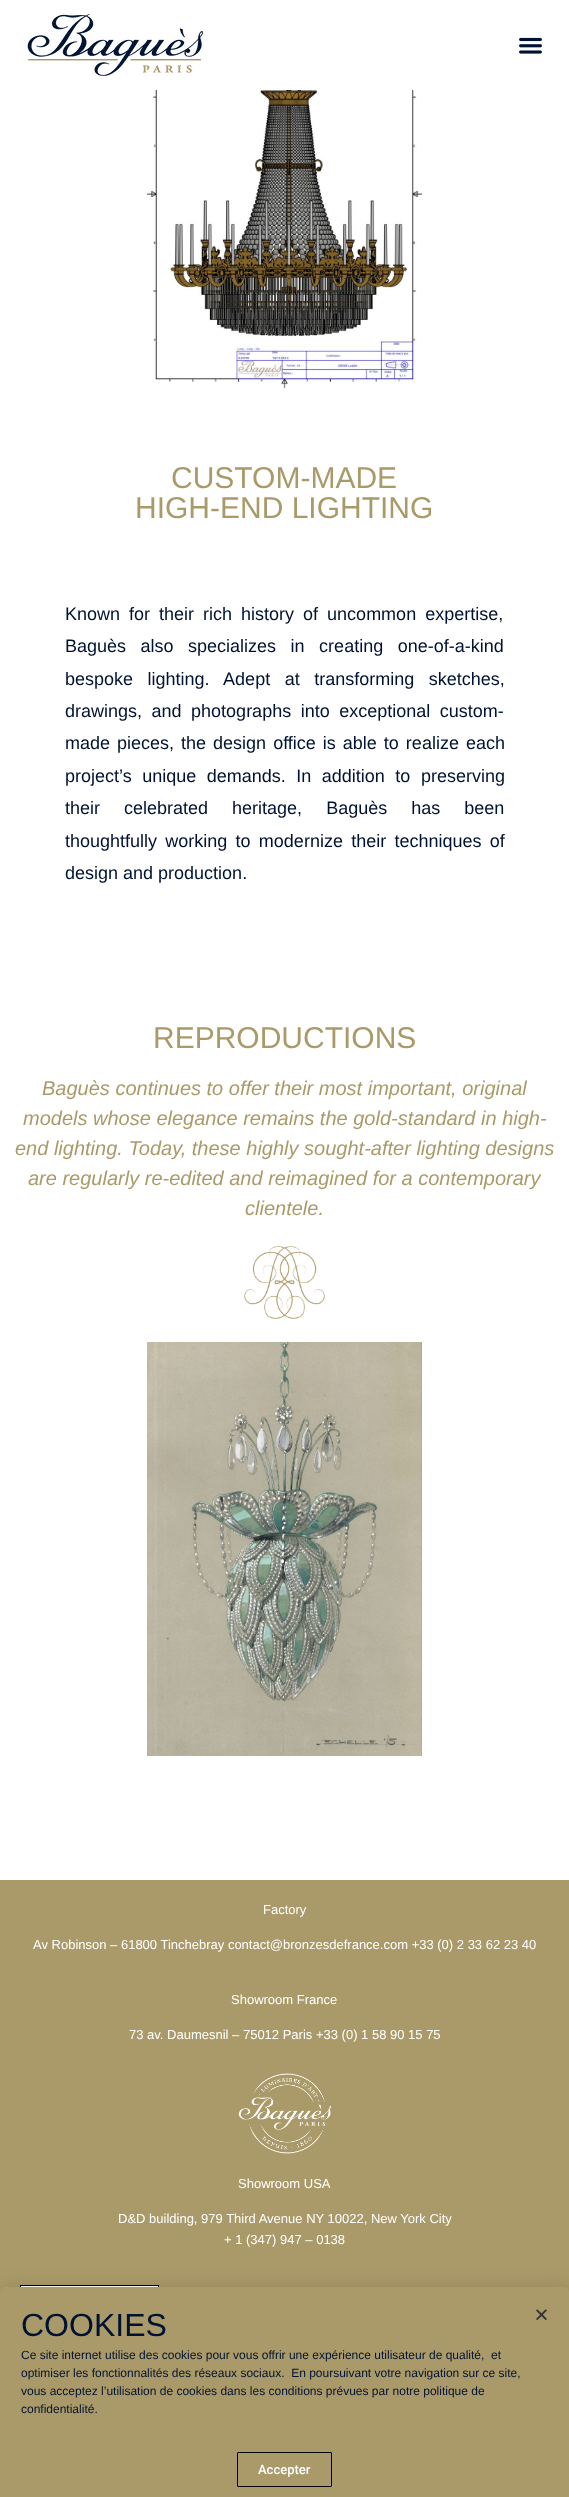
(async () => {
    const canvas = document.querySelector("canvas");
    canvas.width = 569;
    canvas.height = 2497;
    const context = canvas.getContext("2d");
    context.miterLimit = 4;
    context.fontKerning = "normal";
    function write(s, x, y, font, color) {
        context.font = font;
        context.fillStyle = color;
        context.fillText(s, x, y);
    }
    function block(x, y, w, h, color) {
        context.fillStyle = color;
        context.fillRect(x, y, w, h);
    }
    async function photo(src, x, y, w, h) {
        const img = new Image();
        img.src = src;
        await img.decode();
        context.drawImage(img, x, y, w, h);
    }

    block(0, 0, 569, 2497, "rgb(255, 255, 255)");
    await photo("media/1.png", 27, 13, 178, 63);
    await photo("media/2.png", 519, 37, 23, 17);
    await photo("media/3.png", 147, 90, 275, 298);
    write("CUSTOM-MADE", 171, 488, "30px Liberation Sans", "rgb(171, 154, 105)");
    write("HIGH-END LIGHTING", 135, 518, "30px Liberation Sans", "rgb(171, 154, 105)");
    context.wordSpacing = "4px";
    write("Known for their rich history of uncommon expertise,", 65, 620, "18px Liberation Sans", "rgb(0, 18, 49)");
    context.wordSpacing = "9.5px";
    write("Baguès also specializes in creating one-of-a-kind", 65, 652, "18px Liberation Sans", "rgb(0, 18, 49)");
    write("bespoke lighting. Adept at transforming sketches,", 65, 685, "18px Liberation Sans", "rgb(0, 18, 49)");
    context.wordSpacing = "4.5px";
    write("drawings, and photographs into exceptional custom-", 65, 717, "18px Liberation Sans", "rgb(0, 18, 49)");
    context.wordSpacing = "2px";
    write("made pieces, the design office is able to realize each", 65, 749, "18px Liberation Sans", "rgb(0, 18, 49)");
    context.wordSpacing = "5.5px";
    write("project’s unique demands. In addition to preserving", 65, 782, "18px Liberation Sans", "rgb(0, 18, 49)");
    context.wordSpacing = "19px";
    write("their celebrated heritage, Baguès has been", 65, 814, "18px Liberation Sans", "rgb(0, 18, 49)");
    context.wordSpacing = "3.25px";
    write("thoughtfully working to modernize their techniques of", 65, 847, "18px Liberation Sans", "rgb(0, 18, 49)");
    context.wordSpacing = "0px";
    write("design and production.", 65, 879, "18px Liberation Sans", "rgb(0, 18, 49)");
    write("REPRODUCTIONS", 153, 1048, "30px Liberation Sans", "rgb(171, 154, 105)");
    write("Baguès continues to offer their most important, original", 42, 1095, "italic 20px Liberation Sans", "rgb(171, 154, 105)");
    write("models whose elegance remains the gold-standard in high-", 23, 1125, "italic 20px Liberation Sans", "rgb(171, 154, 105)");
    write("end lighting. Today, these highly sought-after lighting designs", 15, 1155, "italic 20px Liberation Sans", "rgb(171, 154, 105)");
    write("are regularly re-edited and reimagined for a contemporary", 28, 1185, "italic 20px Liberation Sans", "rgb(171, 154, 105)");
    write("clientele.", 245, 1215, "italic 20px Liberation Sans", "rgb(171, 154, 105)");
    await photo("media/4.png", 244, 1246, 81, 73);
    await photo("media/5.png", 147, 1342, 275, 414);
    block(0, 1880, 569, 412, "rgb(171, 154, 105)");
    write("Factory", 263, 1914, "13px Liberation Sans", "rgb(255, 255, 255)");
    write("Av Robinson – 61800 Tinchebray contact@bronzesdefrance.com +33 (0) 2 33 62 23 40", 33, 1949, "13px Liberation Sans", "rgb(255, 255, 255)");
    write("Showroom France", 231, 2004, "13px Liberation Sans", "rgb(255, 255, 255)");
    write("73 av. Daumesnil – 75012 Paris +33 (0) 1 58 90 15 75", 129, 2039, "13px Liberation Sans", "rgb(255, 255, 255)");
    await photo("media/6.png", 238, 2073, 94, 81);
    write("Showroom USA", 238, 2188, "13px Liberation Sans", "rgb(255, 255, 255)");
    write("D&D building, 979 Third Avenue NY 10022, New York City", 118, 2223, "13px Liberation Sans", "rgb(255, 255, 255)");
    write("+ 1 (347) 947 – 0138", 224, 2244, "13px Liberation Sans", "rgb(255, 255, 255)");
    block(21, 2286, 137, 1, "rgb(255, 255, 255)");
    context.strokeStyle = "rgb(0, 0, 0)";
    context.strokeRect(20.5, 2285.5, 138, 67);
    context.fillStyle = "rgba(0, 0, 0, 0.2)";
    context.filter = "blur(11.5px)";
    context.beginPath();
    context.roundRect(-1, 2292, 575, 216, 8);
    context.fill();
    context.filter = "none";
    context.fillStyle = "rgb(171, 154, 105)";
    context.beginPath();
    context.roundRect(0, 2287, 569, 210, [5, 5, 0, 0]);
    context.fill();
    write("COOKIES", 21, 2336, "32px Liberation Sans", "rgb(0, 18, 49)");
    write("Ce site internet utilise des cookies pour vous offrir une expérience utilisateur de qualité,  et", 21, 2359, "12px Liberation Sans", "rgb(0, 18, 49)");
    write("optimiser les fonctionnalités des réseaux sociaux.  En poursuivant votre navigation sur ce site,", 21, 2377, "12px Liberation Sans", "rgb(0, 18, 49)");
    write("vous acceptez l’utilisation de cookies dans les conditions prévues par notre politique de", 21, 2395, "12px Liberation Sans", "rgb(0, 18, 49)");
    write("confidentialité.", 21, 2413, "12px Liberation Sans", "rgb(0, 18, 49)");
    context.beginPath();
    context.roundRect(237.5, 2452.5, 94, 34, 0.5);
    context.stroke();
    write("Accepter", 258, 2474, "500 13px Roboto", "rgb(255, 255, 255)");
    await photo("media/7.png", 536, 2309, 11, 11);
})();
